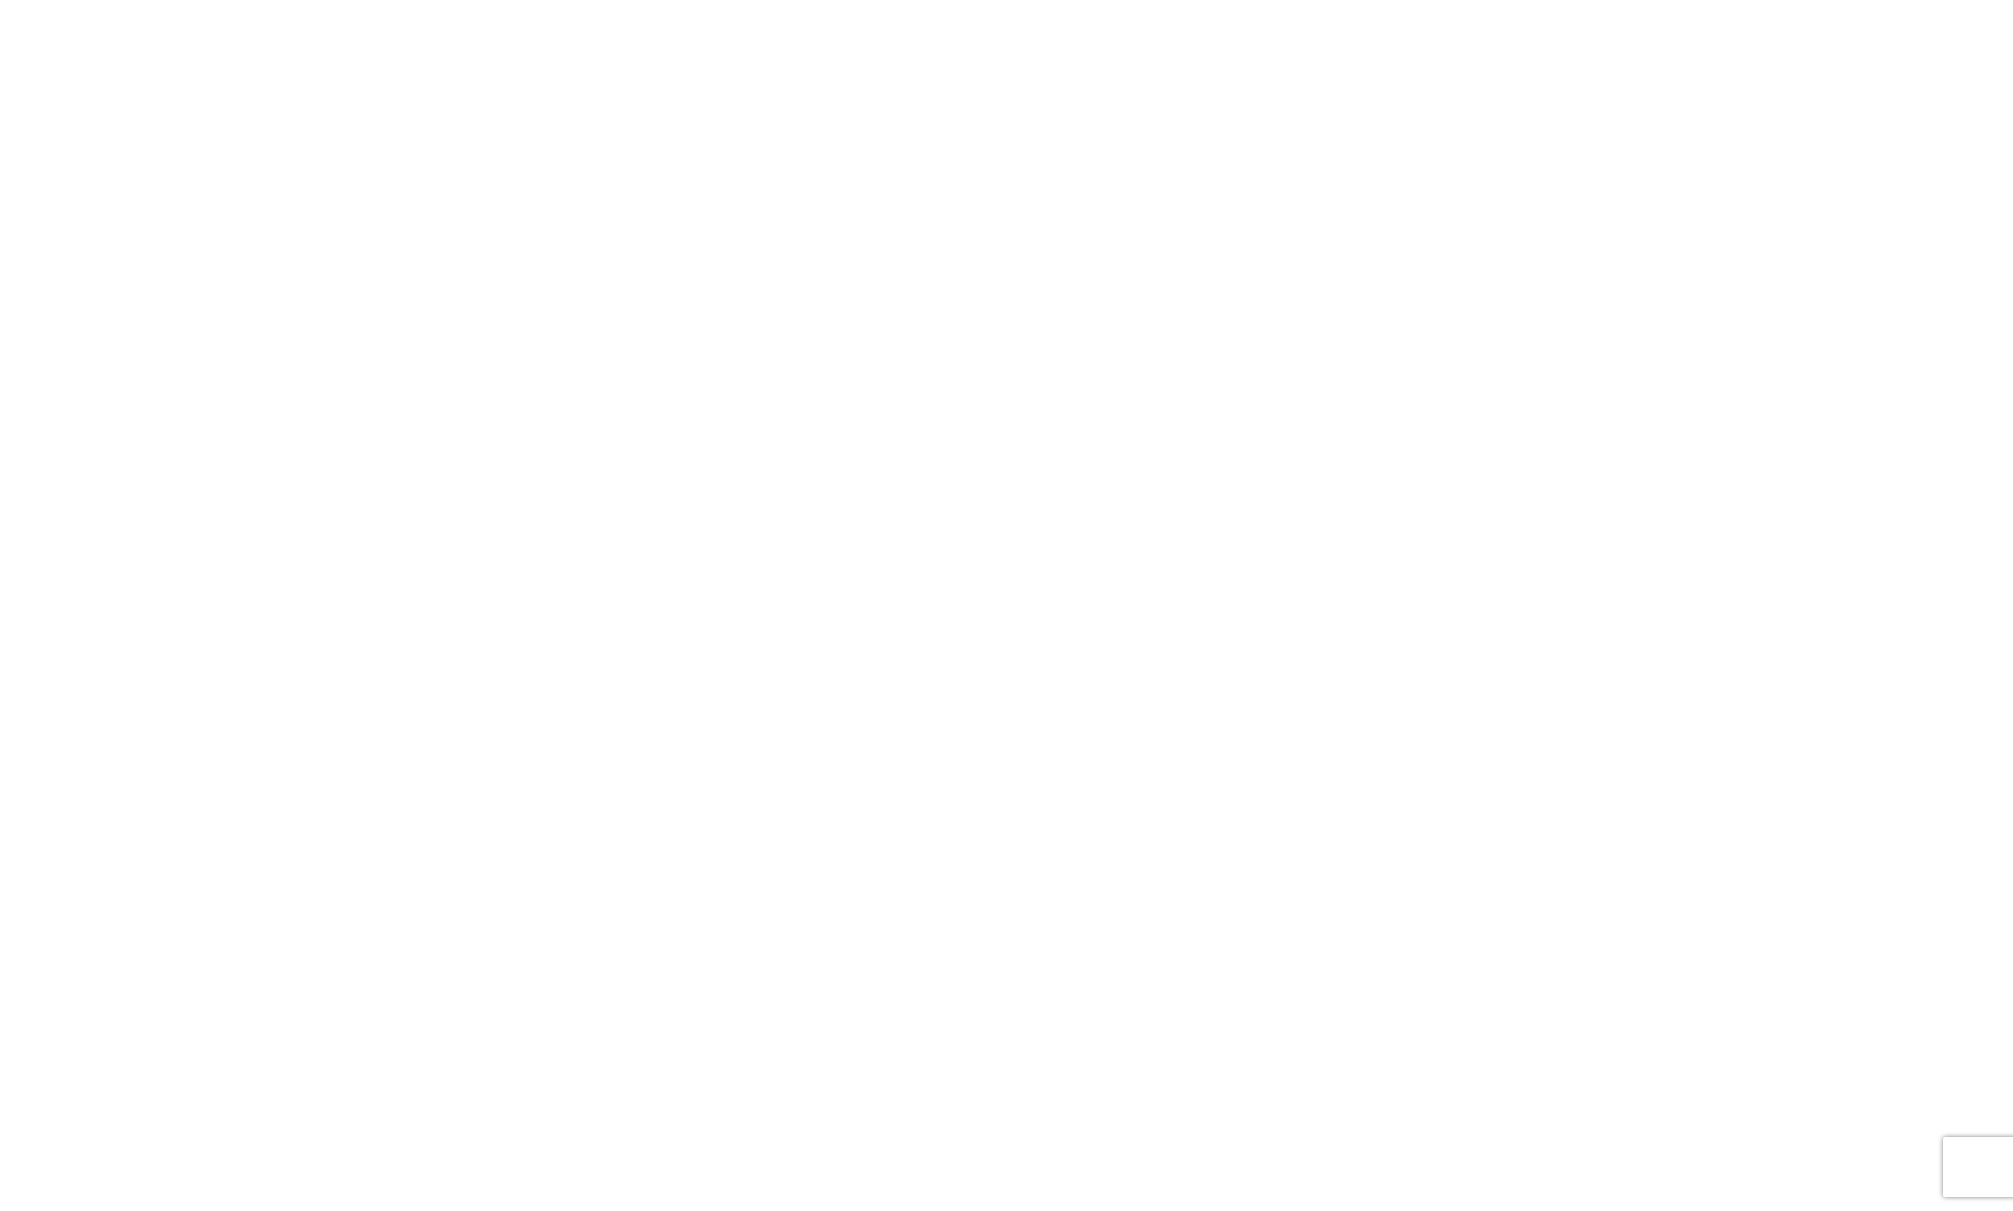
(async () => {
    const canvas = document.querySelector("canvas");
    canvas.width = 2013;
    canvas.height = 1211;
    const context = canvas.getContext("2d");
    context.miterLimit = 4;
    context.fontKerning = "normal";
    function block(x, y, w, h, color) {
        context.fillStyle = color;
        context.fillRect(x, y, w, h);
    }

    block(0, 0, 2013, 1211, "rgb(255, 255, 255)");
    context.save();
    context.beginPath();
    context.moveTo(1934, 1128);
    context.lineTo(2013, 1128);
    context.lineTo(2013, 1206);
    context.lineTo(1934, 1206);
    context.closePath();
    context.moveTo(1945, 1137);
    context.lineTo(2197, 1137);
    context.bezierCurveTo(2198, 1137, 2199, 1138, 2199, 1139);
    context.lineTo(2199, 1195);
    context.bezierCurveTo(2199, 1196, 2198, 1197, 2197, 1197);
    context.lineTo(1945, 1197);
    context.bezierCurveTo(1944, 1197, 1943, 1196, 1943, 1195);
    context.lineTo(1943, 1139);
    context.bezierCurveTo(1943, 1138, 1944, 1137, 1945, 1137);
    context.closePath();
    context.clip("evenodd");
    context.fillStyle = "rgb(128, 128, 128)";
    context.filter = "blur(2.5px)";
    context.beginPath();
    context.roundRect(1943, 1137, 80, 60, 2);
    context.fill();
    context.filter = "none";
    context.restore();
})();
